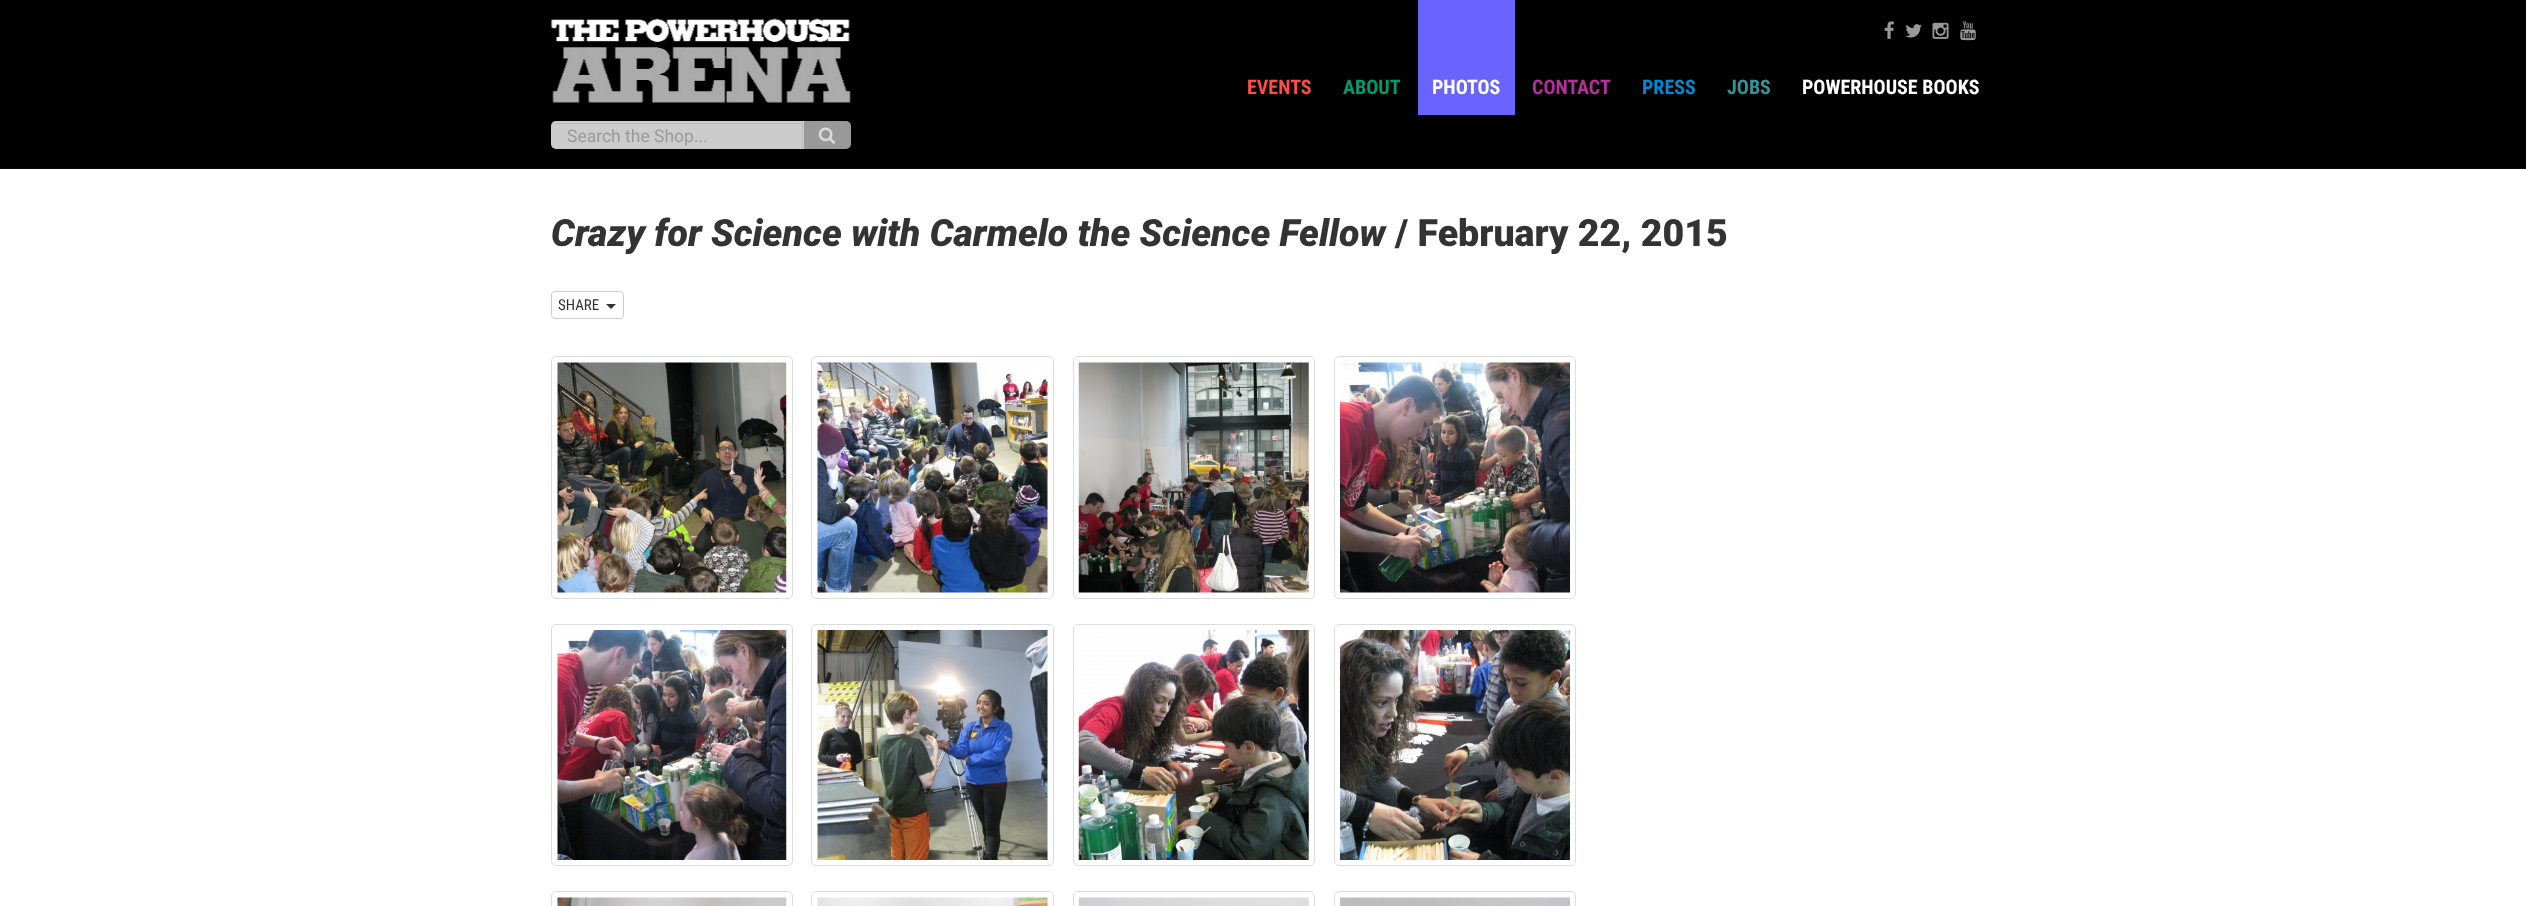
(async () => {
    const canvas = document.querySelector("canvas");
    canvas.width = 2526;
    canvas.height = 906;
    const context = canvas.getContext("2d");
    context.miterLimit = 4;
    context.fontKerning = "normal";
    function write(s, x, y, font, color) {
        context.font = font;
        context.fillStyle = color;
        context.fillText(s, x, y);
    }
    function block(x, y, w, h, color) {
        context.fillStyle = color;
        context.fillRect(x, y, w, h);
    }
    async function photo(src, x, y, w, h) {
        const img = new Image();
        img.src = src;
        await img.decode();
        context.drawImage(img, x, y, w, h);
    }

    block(0, 0, 2526, 906, "rgb(255, 255, 255)");
    block(0, 0, 2526, 168, "rgb(0, 0, 0)");
    block(0, 168, 2526, 1, "rgb(8, 8, 8)");
    await photo("media/1.png", 1884, 21, 10, 18);
    await photo("media/2.png", 1905, 24, 17, 14);
    await photo("media/3.png", 1932, 22, 17, 17);
    await photo("media/4.png", 1960, 21, 16, 20);
    await photo("media/5.png", 550, 18, 301, 85);
    write("EVENTS", 1247, 94, "bold 20px Roboto Condensed", "rgb(255, 76, 71)");
    write("ABOUT", 1343, 94, "bold 20px Roboto Condensed", "rgb(0, 155, 108)");
    block(1418, 0, 97, 115, "rgb(104, 100, 253)");
    write("PHOTOS", 1432, 94, "bold 20px Roboto Condensed", "rgb(255, 255, 255)");
    write("CONTACT", 1532, 94, "bold 20px Roboto Condensed", "rgb(181, 46, 153)");
    write("PRESS", 1642, 94, "bold 20px Roboto Condensed", "rgb(0, 137, 208)");
    write("JOBS", 1727, 94, "bold 20px Roboto Condensed", "rgb(50, 148, 152)");
    write("POWERHOUSE BOOKS", 1802, 94, "bold 20px Roboto Condensed", "rgb(255, 255, 255)");
    context.fillStyle = "rgb(153, 153, 153)";
    context.beginPath();
    context.roundRect(803, 121, 48, 28, [0, 5, 5, 0]);
    context.fill();
    context.fillStyle = "rgb(204, 204, 204)";
    context.beginPath();
    context.roundRect(551, 121, 253, 28, [5, 0, 0, 5]);
    context.fill();
    context.fillStyle = "rgb(189, 189, 189)";
    context.beginPath();
    context.moveTo(556, 124);
    context.lineTo(802, 124);
    context.lineTo(802, 148);
    context.lineTo(803, 148);
    context.lineTo(803, 123);
    context.lineTo(557, 123);
    context.bezierCurveTo(555, 123, 554, 124, 553, 125);
    context.bezierCurveTo(554, 124, 555, 124, 556, 124);
    context.closePath();
    context.fill();
    context.save();
    context.beginPath();
    context.rect(568, 125, 220, 20);
    context.clip();
    write("Search the Shop...", 567, 142, "17.5px Roboto", "rgb(153, 153, 153)");
    context.restore();
    await photo("media/6.png", 818, 127, 17, 17);
    write("Crazy for Science with Carmelo the Science Fellow", 551, 246, "italic 900 37.5px Roboto", "rgb(51, 51, 51)");
    write("/ February 22, 2015", 1395, 246, "900 37.5px Roboto", "rgb(51, 51, 51)");
    context.beginPath();
    context.roundRect(551.5, 291.5, 72, 27, 3.5);
    context.strokeStyle = "rgb(204, 204, 204)";
    context.stroke();
    write("SHARE", 558, 310, "15px Roboto Condensed", "rgb(51, 51, 51)");
    context.beginPath();
    context.moveTo(606, 304);
    context.lineTo(616, 304);
    context.lineTo(611, 309);
    context.closePath();
    context.fill();
    context.beginPath();
    context.roundRect(551.5, 356.5, 241, 242, 4.5);
    context.strokeStyle = "rgb(221, 221, 221)";
    context.stroke();
    await photo("media/7.png", 557, 362, 230, 231);
    context.beginPath();
    context.roundRect(811.5, 356.5, 242, 242, 4.5);
    context.stroke();
    await photo("media/8.png", 817, 362, 231, 231);
    context.beginPath();
    context.roundRect(1073.5, 356.5, 241, 242, 4.5);
    context.stroke();
    await photo("media/9.png", 1078, 362, 231, 231);
    context.beginPath();
    context.roundRect(1334.5, 356.5, 241, 242, 4.5);
    context.stroke();
    await photo("media/10.png", 1340, 362, 230, 231);
    context.beginPath();
    context.roundRect(551.5, 624.5, 241, 241, 4.5);
    context.stroke();
    await photo("media/11.png", 557, 630, 230, 230);
    context.beginPath();
    context.roundRect(811.5, 624.5, 242, 241, 4.5);
    context.stroke();
    await photo("media/12.png", 817, 630, 231, 230);
    context.beginPath();
    context.roundRect(1073.5, 624.5, 241, 241, 4.5);
    context.stroke();
    await photo("media/13.png", 1078, 630, 231, 230);
    context.beginPath();
    context.roundRect(1334.5, 624.5, 241, 241, 4.5);
    context.stroke();
    await photo("media/14.png", 1340, 630, 230, 230);
    context.beginPath();
    context.roundRect(551.5, 891.5, 241, 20, 4.5);
    context.stroke();
    await photo("media/15.png", 557, 897, 230, 9);
    context.beginPath();
    context.roundRect(811.5, 891.5, 242, 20, 4.5);
    context.stroke();
    await photo("media/16.png", 817, 897, 231, 9);
    context.beginPath();
    context.roundRect(1073.5, 891.5, 241, 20, 4.5);
    context.stroke();
    await photo("media/17.png", 1078, 897, 231, 9);
    context.beginPath();
    context.roundRect(1334.5, 891.5, 241, 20, 4.5);
    context.stroke();
    await photo("media/18.png", 1340, 897, 230, 9);
})();
